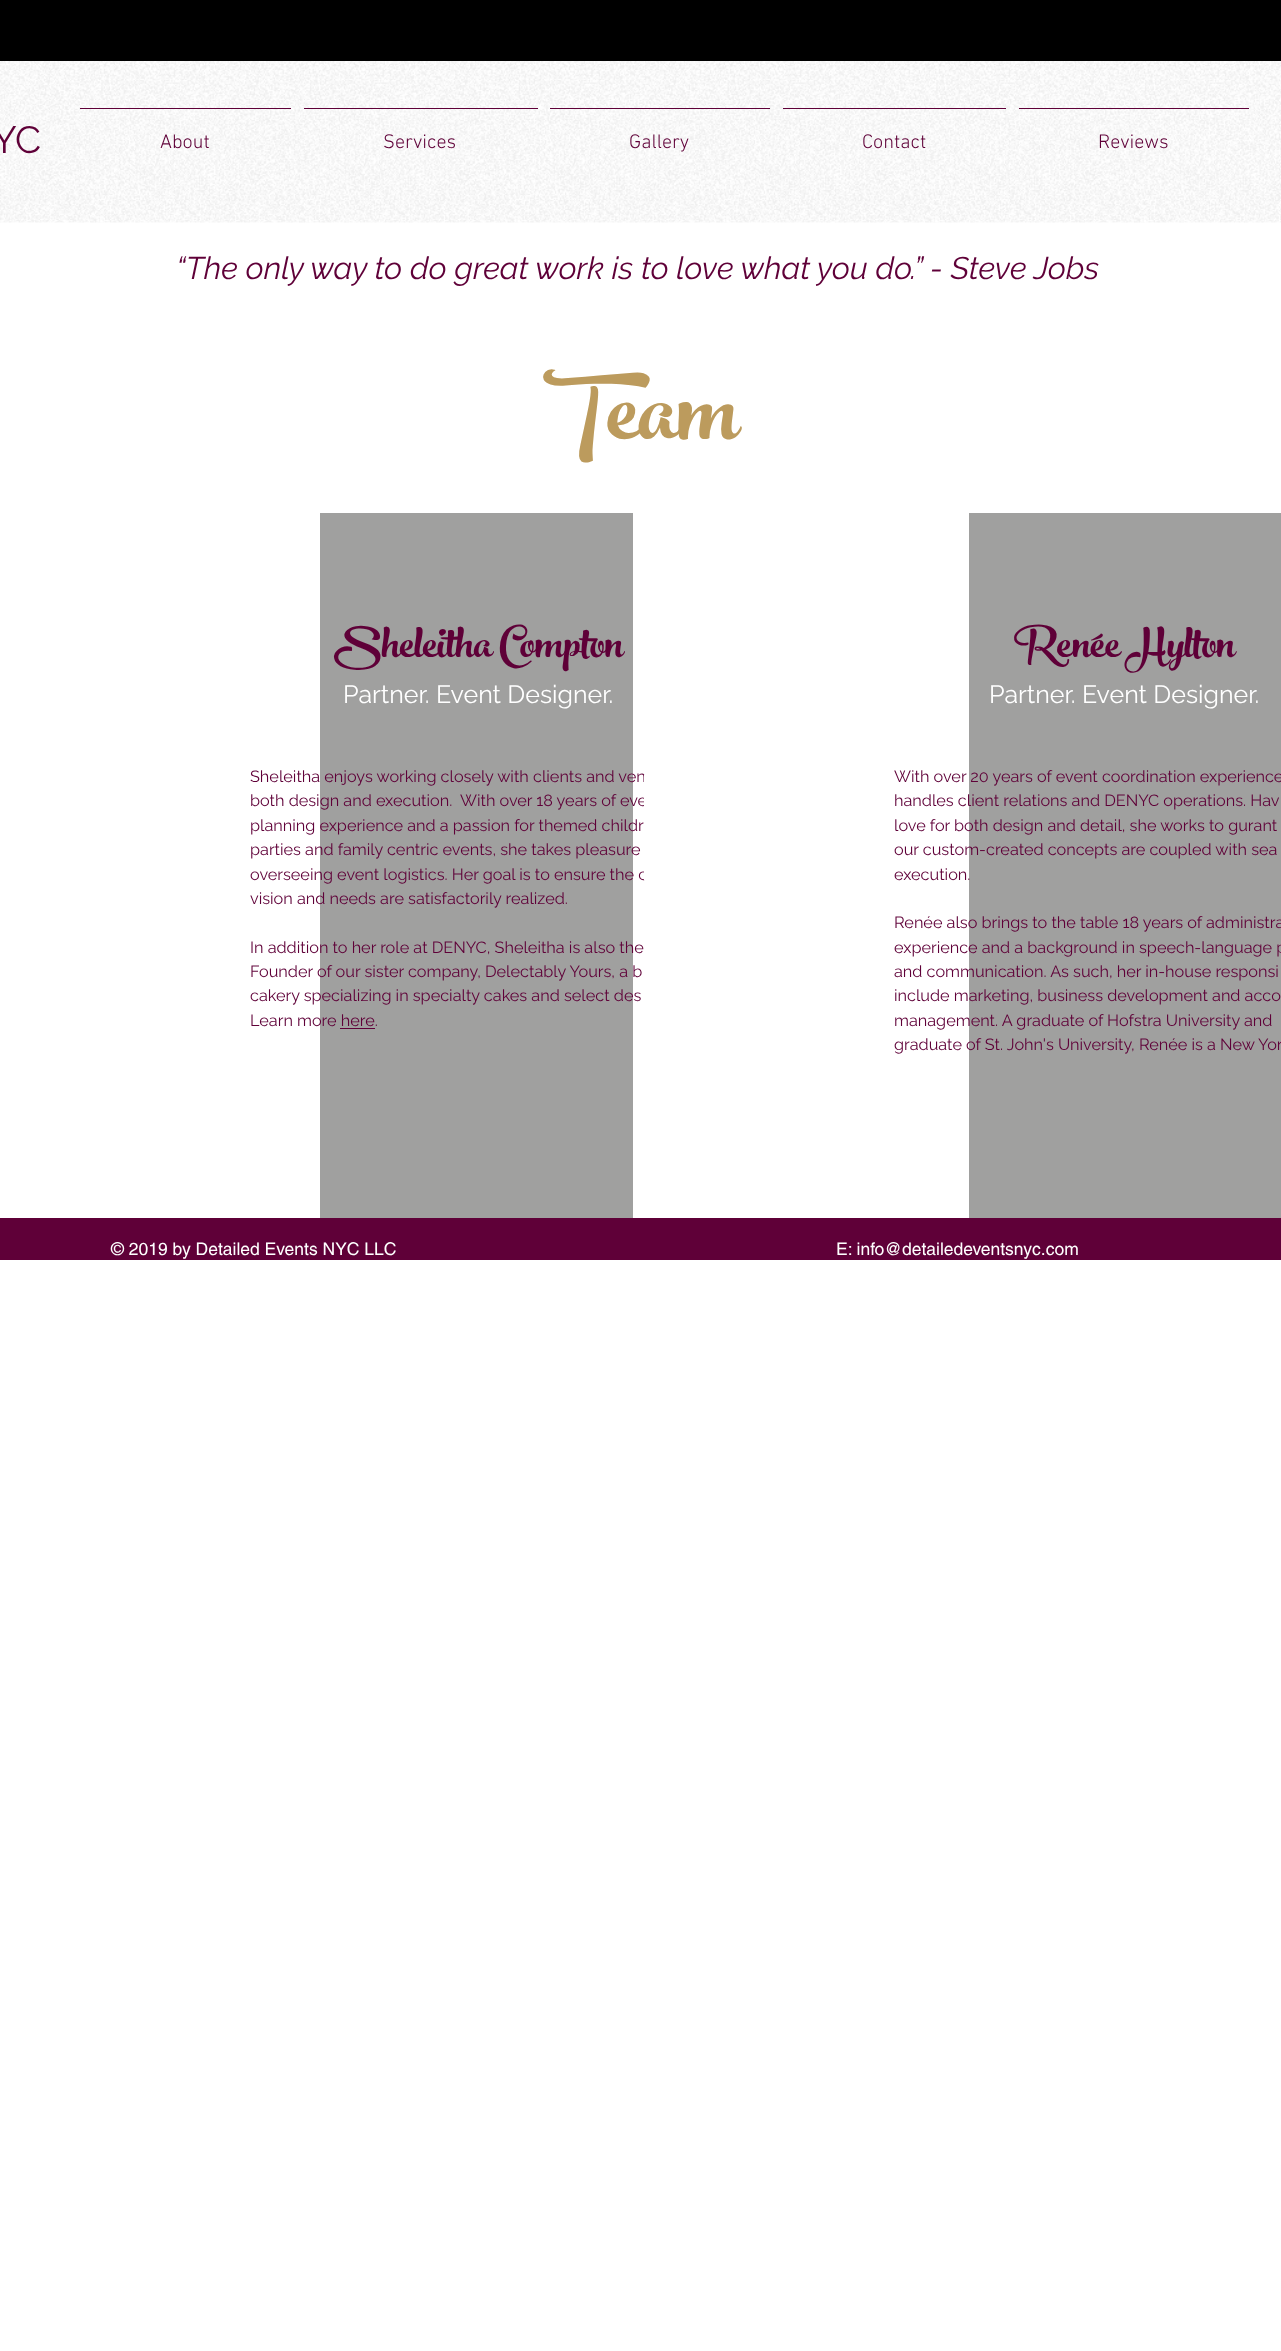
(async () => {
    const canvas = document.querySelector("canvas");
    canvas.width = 1281;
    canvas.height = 2351;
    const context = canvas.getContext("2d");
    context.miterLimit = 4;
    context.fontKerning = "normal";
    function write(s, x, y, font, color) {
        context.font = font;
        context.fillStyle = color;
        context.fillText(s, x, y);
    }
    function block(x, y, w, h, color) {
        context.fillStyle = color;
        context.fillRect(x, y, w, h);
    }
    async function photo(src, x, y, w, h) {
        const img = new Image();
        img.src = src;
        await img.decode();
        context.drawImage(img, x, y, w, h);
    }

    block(0, 0, 1281, 2351, "rgb(255, 255, 255)");
    await photo("media/1.png", 0, 61, 1281, 162);
    block(0, 0, 1281, 61, "rgb(0, 0, 0)");
    write("YC", -8, 153, "38px Raleway", "rgb(95, 0, 56)");
    block(80, 108, 211, 1, "rgb(95, 0, 56)");
    write("About", 160, 148, "300 20px 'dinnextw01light'", "rgb(95, 0, 56)");
    block(304, 108, 234, 1, "rgb(95, 0, 56)");
    write("Services", 383, 148, "300 20px 'dinnextw01light'", "rgb(95, 0, 56)");
    block(550, 108, 220, 1, "rgb(95, 0, 56)");
    write("Gallery", 629, 148, "300 20px 'dinnextw01light'", "rgb(95, 0, 56)");
    block(783, 108, 223, 1, "rgb(95, 0, 56)");
    write("Contact", 862, 148, "300 20px 'dinnextw01light'", "rgb(95, 0, 56)");
    block(1019, 108, 230, 1, "rgb(95, 0, 56)");
    write("Reviews", 1098, 148, "300 20px 'dinnextw01light'", "rgb(95, 0, 56)");
    write("“The only way to do great work is to love what you do.” - Steve Jobs", 176, 279, "italic 31.25px Raleway", "rgb(95, 0, 56)");
    write("Team", 543, 439, "136px 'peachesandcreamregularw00'", "rgb(188, 155, 93)");
    block(320, 513, 313, 705, "rgb(160, 160, 159)");
    write("Sheleitha Compton", 334, 657, "63.75px 'peachesandcreamregularw00'", "rgb(95, 0, 56)");
    write("Partner. Event Designer.", 343, 703, "25px Raleway", "rgb(255, 255, 255)");
    write("Sheleitha enjoys working closely with clients and ven", 250, 782, "16.25px Raleway", "rgb(95, 0, 56)");
    write("both design and execution.  With over 18 years of eve", 250, 806, "16.25px Raleway", "rgb(95, 0, 56)");
    write("planning experience and a passion for themed childr", 250, 831, "16.25px Raleway", "rgb(95, 0, 56)");
    write("parties and family centric events, she takes pleasure", 250, 855, "16.25px Raleway", "rgb(95, 0, 56)");
    write("overseeing event logistics. Her goal is to ensure the c", 250, 880, "16.25px Raleway", "rgb(95, 0, 56)");
    write("vision and needs are satisfactorily realized.", 250, 904, "16.25px Raleway", "rgb(95, 0, 56)");
    write("In addition to her role at DENYC, Sheleitha is also the", 250, 953, "16.25px Raleway", "rgb(95, 0, 56)");
    write("Founder of our sister company, Delectably Yours, a b", 250, 977, "16.25px Raleway", "rgb(95, 0, 56)");
    write("cakery specializing in specialty cakes and select des", 250, 1001, "16.25px Raleway", "rgb(95, 0, 56)");
    write("Learn more here.", 250, 1026, "16.25px Raleway", "rgb(95, 0, 56)");
    block(340, 1028, 35, 1, "rgb(95, 0, 56)");
    block(969, 513, 312, 705, "rgb(160, 160, 159)");
    write("Renée Hylton", 1014, 657, "63.75px 'peachesandcreamregularw00'", "rgb(95, 0, 56)");
    write("Partner. Event Designer.", 989, 703, "25px Raleway", "rgb(255, 255, 255)");
    write("With over 20 years of event coordination experience", 894, 782, "16.25px Raleway", "rgb(95, 0, 56)");
    write("handles client relations and DENYC operations. Hav", 894, 806, "16.25px Raleway", "rgb(95, 0, 56)");
    write("love for both design and detail, she works to gurant", 894, 831, "16.25px Raleway", "rgb(95, 0, 56)");
    write("our custom-created concepts are coupled with sea", 894, 855, "16.25px Raleway", "rgb(95, 0, 56)");
    write("execution.", 894, 880, "16.25px Raleway", "rgb(95, 0, 56)");
    write("Renée also brings to the table 18 years of administra", 894, 928, "16.25px Raleway", "rgb(95, 0, 56)");
    write("experience and a background in speech-language p", 894, 953, "16.25px Raleway", "rgb(95, 0, 56)");
    write("and communication. As such, her in-house responsi", 894, 977, "16.25px Raleway", "rgb(95, 0, 56)");
    write("include marketing, business development and acco", 894, 1001, "16.25px Raleway", "rgb(95, 0, 56)");
    write("management. A graduate of Hofstra University and", 894, 1026, "16.25px Raleway", "rgb(95, 0, 56)");
    write("graduate of St. John's University, Renée is a New Yor", 894, 1050, "16.25px Raleway", "rgb(95, 0, 56)");
    block(644, 775, 3, 105, "rgb(255, 255, 255)");
    block(0, 1218, 1281, 42, "rgb(95, 0, 56)");
    write("© 2019 by Detailed Events NYC LLC", 111, 1255, "17.5px helvetica", "rgb(255, 255, 255)");
    write("E: info@detailedeventsnyc.com", 836, 1255, "17.5px helvetica", "rgb(255, 255, 255)");
})();
